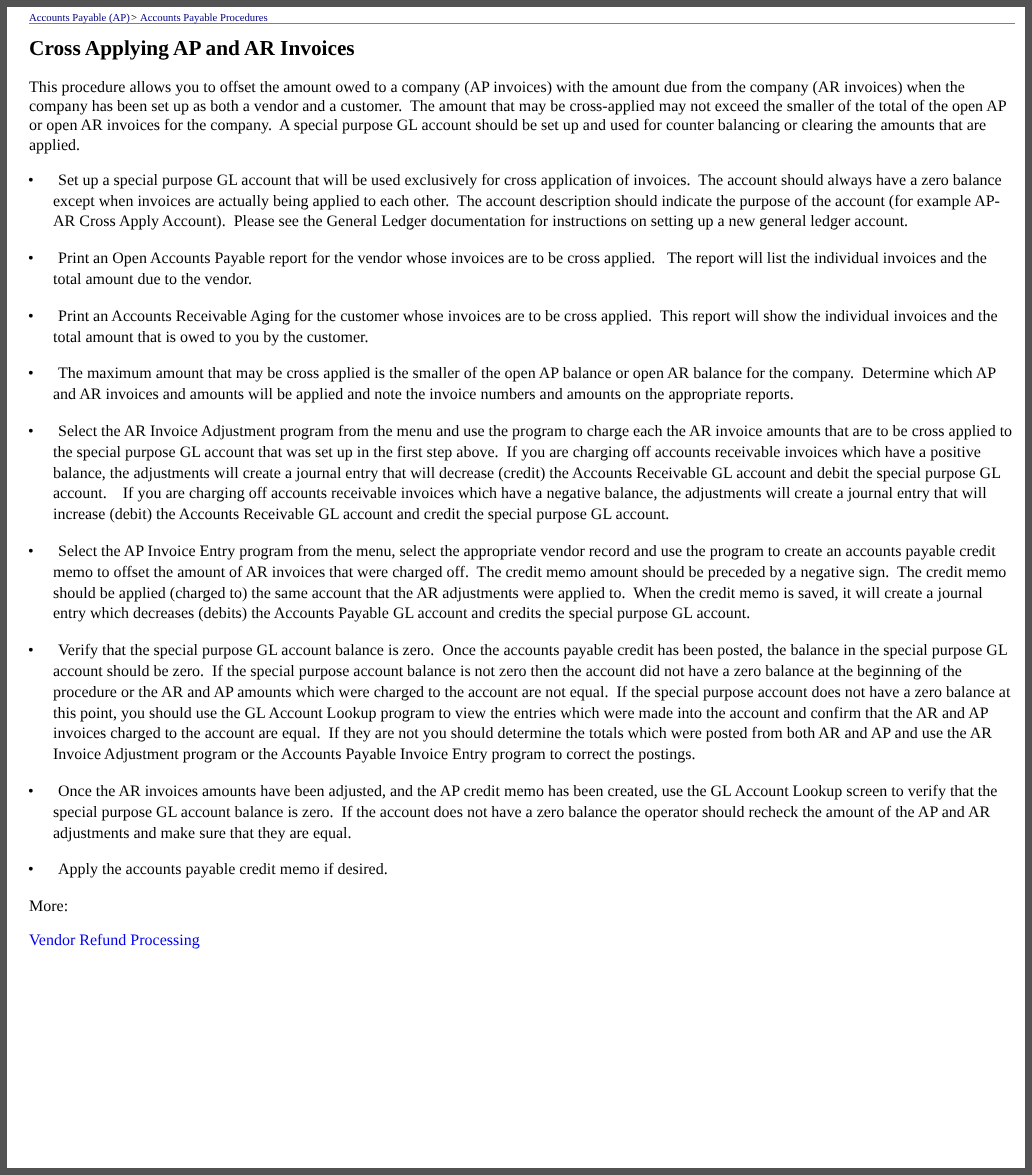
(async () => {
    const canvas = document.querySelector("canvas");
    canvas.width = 1032;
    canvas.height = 1175;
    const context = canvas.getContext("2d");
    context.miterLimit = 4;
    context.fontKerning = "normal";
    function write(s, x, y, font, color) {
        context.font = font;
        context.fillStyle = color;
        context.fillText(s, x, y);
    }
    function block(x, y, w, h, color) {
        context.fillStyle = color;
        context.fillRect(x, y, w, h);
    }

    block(0, 0, 1032, 1175, "rgb(83, 83, 83)");
    block(7, 7, 1018, 1161, "rgb(255, 255, 255)");
    block(29, 23, 986, 1, "rgb(128, 128, 128)");
    write("Accounts Payable (AP)", 29, 21, "10.75px Liberation Serif", "rgb(0, 0, 128)");
    write(">", 131, 21, "10.75px Liberation Serif", "rgb(0, 0, 0)");
    write("Accounts Payable Procedures", 140, 21, "10.75px Liberation Serif", "rgb(0, 0, 128)");
    write("Cross Applying AP and AR Invoices", 29, 55, "bold 21.3px Liberation Serif", "rgb(0, 0, 0)");
    write("This procedure allows you to offset the amount owed to a company (AP invoices) with the amount due from the company (AR invoices) when the", 29, 92, "16px Liberation Serif", "rgb(0, 0, 0)");
    write("company has been set up as both a vendor and a customer.  The amount that may be cross-applied may not exceed the smaller of the total of the open AP", 29, 111, "16px Liberation Serif", "rgb(0, 0, 0)");
    write("or open AR invoices for the company.  A special purpose GL account should be set up and used for counter balancing or clearing the amounts that are", 29, 130, "16px Liberation Serif", "rgb(0, 0, 0)");
    write("applied.", 29, 150, "16px Liberation Serif", "rgb(0, 0, 0)");
    write("•", 28, 185, "16px Liberation Serif", "rgb(0, 0, 0)");
    write("Set up a special purpose GL account that will be used exclusively for cross application of invoices.  The account should always have a zero balance", 58, 185, "16px Liberation Serif", "rgb(0, 0, 0)");
    write("except when invoices are actually being applied to each other.  The account description should indicate the purpose of the account (for example AP-", 53, 206, "16px Liberation Serif", "rgb(0, 0, 0)");
    write("AR Cross", 53, 226, "16px Liberation Serif", "rgb(0, 0, 0)");
    write("Apply Account).  Please see the General Ledger documentation for instructions on setting up a new general ledger account.", 119, 226, "16px Liberation Serif", "rgb(0, 0, 0)");
    write("•", 28, 263, "16px Liberation Serif", "rgb(0, 0, 0)");
    write("Print an Open Accounts Payable report for the vendor whose invoices are to be cross applied.   The report will list the individual invoices and the", 58, 263, "16px Liberation Serif", "rgb(0, 0, 0)");
    write("total amount due to the vendor.", 53, 284, "16px Liberation Serif", "rgb(0, 0, 0)");
    write("•", 28, 321, "16px Liberation Serif", "rgb(0, 0, 0)");
    write("Print an Accounts Receivable Aging for the customer whose invoices are to be cross applied.  This report will show the individual invoices and the", 58, 321, "16px Liberation Serif", "rgb(0, 0, 0)");
    write("total amount that is owed to you by the customer.", 53, 342, "16px Liberation Serif", "rgb(0, 0, 0)");
    write("•", 28, 378, "16px Liberation Serif", "rgb(0, 0, 0)");
    write("The maximum amount that may be cross applied is the smaller of the open AP balance or open AR balance for the company.  Determine which AP", 58, 378, "16px Liberation Serif", "rgb(0, 0, 0)");
    write("and AR invoices and amounts will be applied and note the invoice numbers and amounts on the appropriate reports.", 53, 399, "16px Liberation Serif", "rgb(0, 0, 0)");
    write("•", 28, 436, "16px Liberation Serif", "rgb(0, 0, 0)");
    write("Select the AR Invoice Adjustment program from the menu and use the program to charge each the AR invoice amounts that are to be cross applied to", 58, 436, "16px Liberation Serif", "rgb(0, 0, 0)");
    write("the special purpose GL account that was set up in the first step above.  If you are charging off accounts receivable invoices which have a positive", 53, 457, "16px Liberation Serif", "rgb(0, 0, 0)");
    write("balance, the adjustments will create a journal entry that will decrease (credit) the Accounts Receivable GL account and debit the special purpose GL", 53, 478, "16px Liberation Serif", "rgb(0, 0, 0)");
    write("account.    If you are charging off accounts receivable invoices which have a negative balance, the adjustments will create a journal entry that will", 53, 498, "16px Liberation Serif", "rgb(0, 0, 0)");
    write("increase (debit) the Accounts Receivable GL account and credit the special purpose GL account.", 53, 519, "16px Liberation Serif", "rgb(0, 0, 0)");
    write("•", 28, 556, "16px Liberation Serif", "rgb(0, 0, 0)");
    write("Select the AP Invoice Entry program from the menu, select the appropriate vendor record and use the program to create an accounts payable credit", 58, 556, "16px Liberation Serif", "rgb(0, 0, 0)");
    write("memo to offset the amount of AR invoices that were charged off.  The credit memo amount should be preceded by a negative sign.  The credit memo", 53, 577, "16px Liberation Serif", "rgb(0, 0, 0)");
    write("should be applied (charged to) the same account that the AR adjustments were applied to.  When the credit memo is saved, it will create a journal", 53, 598, "16px Liberation Serif", "rgb(0, 0, 0)");
    write("entry which decreases (debits) the Accounts Payable GL account and credits the special purpose GL account.", 53, 618, "16px Liberation Serif", "rgb(0, 0, 0)");
    write("•", 28, 655, "16px Liberation Serif", "rgb(0, 0, 0)");
    write("Verify that the special purpose GL account balance is zero.  Once the accounts payable credit has been posted, the balance in the special purpose GL", 58, 655, "16px Liberation Serif", "rgb(0, 0, 0)");
    write("account should be zero.  If the special purpose account balance is not zero then the account did not have a zero balance at the beginning of the", 53, 676, "16px Liberation Serif", "rgb(0, 0, 0)");
    write("procedure or the AR and AP amounts which were charged to the account are not equal.  If the special purpose account does not have a zero balance at", 53, 697, "16px Liberation Serif", "rgb(0, 0, 0)");
    write("this point, you should use the GL Account Lookup program to view the entries which were made into the account and confirm that the AR and AP", 53, 718, "16px Liberation Serif", "rgb(0, 0, 0)");
    write("invoices charged to the account are equal.  If they are not you should determine the totals which were posted from both AR and AP and use the AR", 53, 738, "16px Liberation Serif", "rgb(0, 0, 0)");
    write("Invoice Adjustment program or the Accounts Payable Invoice Entry program to correct the postings.", 53, 759, "16px Liberation Serif", "rgb(0, 0, 0)");
    write("•", 28, 796, "16px Liberation Serif", "rgb(0, 0, 0)");
    write("Once the AR invoices amounts have been adjusted, and the AP credit memo has been created, use the GL Account Lookup screen to verify that the", 58, 796, "16px Liberation Serif", "rgb(0, 0, 0)");
    write("special purpose GL account balance is zero.  If the account does not have a zero balance the operator should recheck the amount of the AP and AR", 53, 817, "16px Liberation Serif", "rgb(0, 0, 0)");
    write("adjustments and make sure that they are equal.", 53, 838, "16px Liberation Serif", "rgb(0, 0, 0)");
    write("•", 28, 874, "16px Liberation Serif", "rgb(0, 0, 0)");
    write("Apply the accounts payable credit memo if desired.", 58, 874, "16px Liberation Serif", "rgb(0, 0, 0)");
    write("More:", 29, 911, "16px Liberation Serif", "rgb(0, 0, 0)");
    write("Vendor Refund Processing", 29, 945, "16px Liberation Serif", "rgb(0, 0, 238)");
})();
